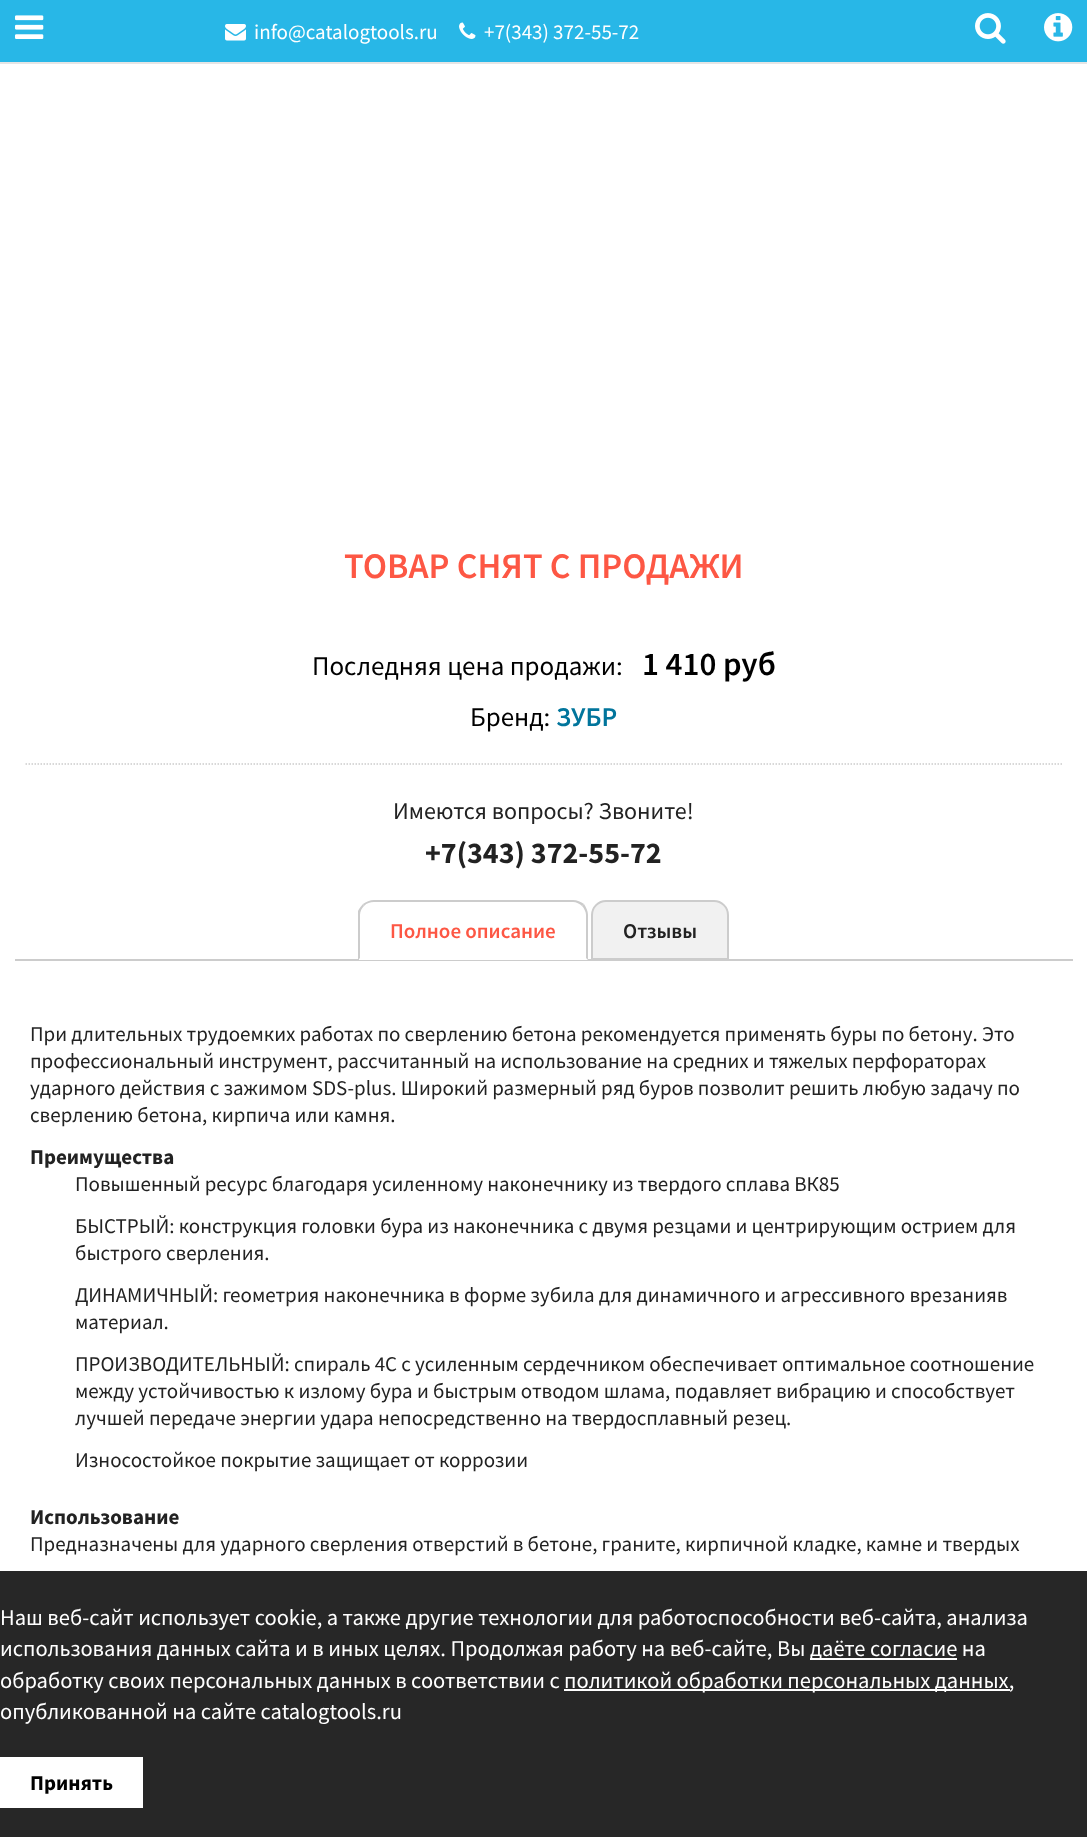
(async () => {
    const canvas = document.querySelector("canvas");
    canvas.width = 1087;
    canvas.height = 1837;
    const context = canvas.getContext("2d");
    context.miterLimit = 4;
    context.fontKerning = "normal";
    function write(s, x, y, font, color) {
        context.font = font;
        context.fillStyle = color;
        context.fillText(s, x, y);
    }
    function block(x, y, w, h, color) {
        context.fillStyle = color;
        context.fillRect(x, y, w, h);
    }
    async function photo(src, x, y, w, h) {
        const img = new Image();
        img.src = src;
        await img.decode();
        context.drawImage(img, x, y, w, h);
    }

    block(0, 0, 1087, 1837, "rgb(255, 255, 255)");
    block(0, 0, 1087, 62, "rgb(40, 183, 231)");
    block(0, 62, 1087, 2, "rgb(229, 229, 229)");
    await photo("media/1.png", 15, 15, 29, 24);
    await photo("media/2.png", 225, 24, 21, 17);
    write("info@catalogtools.ru", 254, 39, "21px Source Sans Pro", "rgb(255, 255, 255)");
    await photo("media/3.png", 459, 22, 17, 17);
    write("+7(343) 372-55-72", 484, 39, "21px Source Sans Pro", "rgb(255, 255, 255)");
    await photo("media/4.png", 975, 13, 31, 31);
    await photo("media/5.png", 1044, 13, 29, 29);
    write("ТОВАР СНЯТ С ПРОДАЖИ", 344, 578, "600 36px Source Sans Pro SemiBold", "rgb(253, 87, 68)");
    write("Последняя цена продажи:", 312, 675, "27px Source Sans Pro", "rgb(0, 0, 0)");
    write("1 410 руб", 642, 675, "600 33px Source Sans Pro SemiBold", "rgb(0, 0, 0)");
    write("Бренд:", 470, 726, "27px Source Sans Pro", "rgb(0, 0, 0)");
    write("ЗУБР", 556, 726, "600 27px Source Sans Pro SemiBold", "rgb(1, 117, 156)");
    context.beginPath();
    context.moveTo(25.5, 764);
    context.lineTo(1062, 764);
    context.strokeStyle = "rgb(204, 204, 204)";
    context.lineWidth = 1.5;
    context.setLineDash([1.5, 1.5]);
    context.stroke();
    write("Имеются вопросы? Звоните!", 393, 819, "24px Source Sans Pro", "rgb(34, 34, 34)");
    write("+7(343) 372-55-72", 425, 863, "bold 30px Source Sans Pro", "rgb(34, 34, 34)");
    block(15, 959, 1058, 2, "rgb(204, 204, 204)");
    context.fillStyle = "rgb(255, 255, 255)";
    context.beginPath();
    context.roundRect(359, 900, 229, 60, [15, 15, 0, 0]);
    context.fill();
    context.fillStyle = "rgb(204, 204, 204)";
    context.beginPath();
    context.moveTo(374, 900);
    context.bezierCurveTo(370, 900, 366, 902, 363, 904);
    context.lineTo(364, 906);
    context.bezierCurveTo(367, 903, 370, 902, 374, 902);
    context.lineTo(573, 902);
    context.bezierCurveTo(576, 902, 580, 904, 582, 906);
    context.lineTo(584, 904);
    context.bezierCurveTo(581, 902, 577, 900, 573, 900);
    context.closePath();
    context.fill();
    context.beginPath();
    context.moveTo(588, 960);
    context.lineTo(588, 915);
    context.bezierCurveTo(588, 911, 586, 907, 584, 904);
    context.lineTo(582, 906);
    context.bezierCurveTo(584, 908, 586, 912, 586, 915);
    context.lineTo(586, 958);
    context.closePath();
    context.fill();
    context.beginPath();
    context.moveTo(358, 960);
    context.lineTo(358, 911);
    context.bezierCurveTo(359, 909, 361, 906, 363, 904);
    context.lineTo(364, 906);
    context.bezierCurveTo(362, 908, 360, 911, 360, 915);
    context.lineTo(360, 958);
    context.closePath();
    context.fill();
    write("Полное описание", 390, 938, "600 21px Source Sans Pro SemiBold", "rgb(253, 87, 68)");
    context.fillStyle = "rgb(241, 241, 241)";
    context.beginPath();
    context.roundRect(592, 901, 136, 58, [14, 14, 0, 0]);
    context.fill();
    context.lineWidth = 2;
    context.setLineDash([]);
    context.stroke();
    write("Отзывы", 623, 938, "600 21px Source Sans Pro SemiBold", "rgb(34, 34, 34)");
    write("При длительных трудоемких работах по сверлению бетона рекомендуется применять буры по бетону. Это", 30, 1041, "21px Source Sans Pro", "rgb(34, 34, 34)");
    write("профессиональный инструмент, рассчитанный на использование на средних и тяжелых перфораторах", 30, 1068, "21px Source Sans Pro", "rgb(34, 34, 34)");
    write("ударного действия с зажимом SDS-plus. Широкий размерный ряд буров позволит решить любую задачу по", 30, 1095, "21px Source Sans Pro", "rgb(34, 34, 34)");
    write("сверлению бетона, кирпича или камня.", 30, 1122, "21px Source Sans Pro", "rgb(34, 34, 34)");
    write("Преимущества", 30, 1164, "bold 21px Source Sans Pro", "rgb(34, 34, 34)");
    write("Повышенный ресурс благодаря усиленному наконечнику из твердого сплава ВК85", 75, 1191, "21px Source Sans Pro", "rgb(34, 34, 34)");
    write("БЫСТРЫЙ: конструкция головки бура из наконечника с двумя резцами и центрирующим острием для", 75, 1233, "21px Source Sans Pro", "rgb(34, 34, 34)");
    write("быстрого сверления.", 75, 1260, "21px Source Sans Pro", "rgb(34, 34, 34)");
    write("ДИНАМИЧНЫЙ: геометрия наконечника в форме зубила для динамичного и агрессивного врезанияв", 75, 1302, "21px Source Sans Pro", "rgb(34, 34, 34)");
    write("материал.", 75, 1329, "21px Source Sans Pro", "rgb(34, 34, 34)");
    write("ПРОИЗВОДИТЕЛЬНЫЙ: спираль 4С с усиленным сердечником обеспечивает оптимальное соотношение", 75, 1371, "21px Source Sans Pro", "rgb(34, 34, 34)");
    write("между устойчивостью к излому бура и быстрым отводом шлама, подавляет вибрацию и способствует", 75, 1398, "21px Source Sans Pro", "rgb(34, 34, 34)");
    write("лучшей передаче энергии удара непосредственно на твердосплавный резец.", 75, 1425, "21px Source Sans Pro", "rgb(34, 34, 34)");
    write("Износостойкое покрытие защищает от коррозии", 75, 1467, "21px Source Sans Pro", "rgb(34, 34, 34)");
    write("Использование", 30, 1524, "bold 21px Source Sans Pro", "rgb(34, 34, 34)");
    write("Предназначены для ударного сверления отверстий в бетоне, граните, кирпичной кладке, камне и твердых", 30, 1551, "21px Source Sans Pro", "rgb(34, 34, 34)");
    block(0, 1571, 1087, 266, "rgb(39, 39, 39)");
    write("Наш веб-сайт использует cookie, а также другие технологии для работоспособности веб-сайта, анализа", 0, 1625, "22.5px Source Sans Pro", "rgb(255, 255, 255)");
    write("использования данных сайта и в иных целях. Продолжая работу на веб-сайте, Вы", 0, 1656, "22.5px Source Sans Pro", "rgb(255, 255, 255)");
    block(810, 1658, 147, 2, "rgb(255, 255, 255)");
    write("даёте согласие на", 810, 1656, "22.5px Source Sans Pro", "rgb(255, 255, 255)");
    write("обработку своих персональных данных в соответствии с", 0, 1688, "22.5px Source Sans Pro", "rgb(255, 255, 255)");
    block(564, 1689, 446, 2, "rgb(255, 255, 255)");
    write("политикой обработки персональных данных,", 564, 1688, "22.5px Source Sans Pro", "rgb(255, 255, 255)");
    write("опубликованной на сайте catalogtools.ru", 0, 1719, "22.5px Source Sans Pro", "rgb(255, 255, 255)");
    block(0, 1757, 143, 51, "rgb(255, 255, 255)");
    write("Принять", 30, 1790, "bold 21px Source Sans Pro", "rgb(0, 0, 0)");
})();
